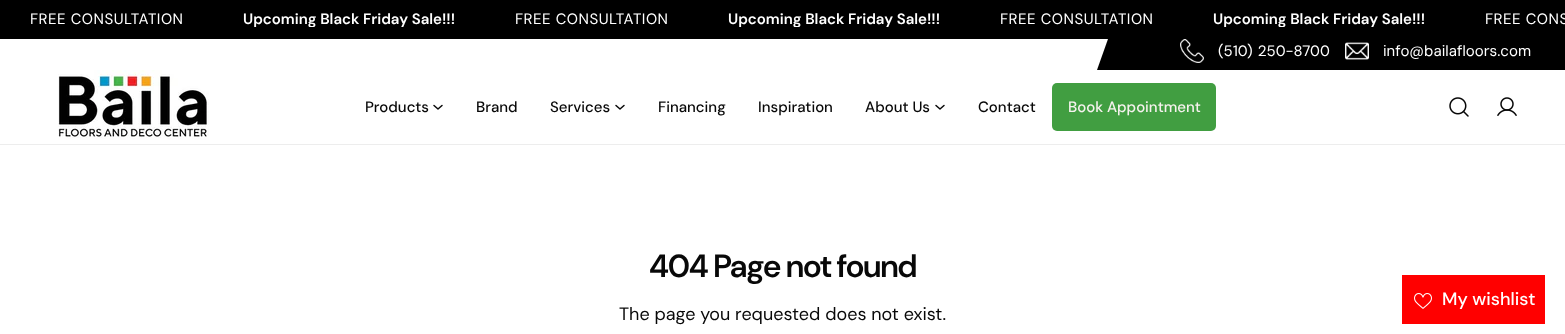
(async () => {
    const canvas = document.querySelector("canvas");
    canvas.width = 1565;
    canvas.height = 334;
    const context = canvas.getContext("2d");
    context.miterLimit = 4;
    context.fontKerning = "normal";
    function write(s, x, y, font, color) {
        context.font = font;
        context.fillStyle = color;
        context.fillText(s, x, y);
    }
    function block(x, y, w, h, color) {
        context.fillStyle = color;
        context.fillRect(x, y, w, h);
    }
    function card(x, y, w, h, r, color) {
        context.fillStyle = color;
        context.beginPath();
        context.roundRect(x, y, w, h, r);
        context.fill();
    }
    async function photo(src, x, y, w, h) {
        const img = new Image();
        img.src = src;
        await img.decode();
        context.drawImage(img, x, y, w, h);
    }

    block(0, 0, 1565, 334, "rgb(255, 255, 255)");
    block(0, 0, 1565, 39, "rgb(0, 0, 0)");
    context.letterSpacing = "0.5px";
    write("FREE CONSULTATION", 30, 24, "15px 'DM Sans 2'", "rgb(255, 255, 255)");
    context.save();
    context.beginPath();
    context.rect(0, 12, 1565, 15);
    context.clip();
    context.letterSpacing = "0px";
    write("Upcoming Black Friday Sale!!!", 243, 24, "600 15px 'DM Sans 2'", "rgb(255, 255, 255)");
    context.restore();
    write("FREE CONSULTATION", 515, 24, "15px 'DM Sans 2'", "rgb(255, 255, 255)");
    context.save();
    context.beginPath();
    context.rect(0, 12, 1565, 15);
    context.clip();
    context.letterSpacing = "0px";
    write("Upcoming Black Friday Sale!!!", 728, 24, "600 15px 'DM Sans 2'", "rgb(255, 255, 255)");
    context.restore();
    write("FREE CONSULTATION", 1000, 24, "15px 'DM Sans 2'", "rgb(255, 255, 255)");
    context.save();
    context.beginPath();
    context.rect(0, 12, 1565, 15);
    context.clip();
    context.letterSpacing = "0px";
    write("Upcoming Black Friday Sale!!!", 1213, 24, "600 15px 'DM Sans 2'", "rgb(255, 255, 255)");
    context.restore();
    write("FREE CONS", 1485, 24, "15px 'DM Sans 2'", "rgb(255, 255, 255)");
    block(1197, 39, 368, 31, "rgb(0, 0, 0)");
    context.beginPath();
    context.moveTo(1108, 39);
    context.lineTo(1208, 39);
    context.lineTo(1197, 70);
    context.lineTo(1097, 70);
    context.closePath();
    context.fill();
    await photo("media/1.png", 1180, 39, 24, 24);
    context.letterSpacing = "0px";
    context.wordSpacing = "1px";
    write("(510) 250-8700", 1218, 56, "15px 'DM Sans 2'", "rgb(255, 255, 255)");
    await photo("media/2.png", 1345, 42, 24, 18);
    context.wordSpacing = "0px";
    write("info@bailafloors.com", 1383, 56, "15px 'DM Sans 2'", "rgb(255, 255, 255)");
    block(0, 144, 1565, 1, "rgb(237, 237, 237)");
    await photo("media/3.png", 58, 70, 151, 70);
    write("Products", 365, 112, "500 15px 'DM Sans 2'", "rgb(8, 8, 8)");
    context.beginPath();
    context.moveTo(442, 105.5);
    context.lineTo(438, 109);
    context.lineTo(434, 105.5);
    context.strokeStyle = "rgb(8, 8, 8)";
    context.lineWidth = 1.5;
    context.lineCap = "round";
    context.lineJoin = "round";
    context.stroke();
    write("Brand", 476, 112, "500 15px 'DM Sans 2'", "rgb(8, 8, 8)");
    write("Services", 550, 112, "500 15px 'DM Sans 2'", "rgb(8, 8, 8)");
    context.beginPath();
    context.moveTo(624, 105.5);
    context.lineTo(620, 109);
    context.lineTo(616, 105.5);
    context.stroke();
    write("Financing", 658, 112, "500 15px 'DM Sans 2'", "rgb(8, 8, 8)");
    write("Inspiration", 758, 112, "500 15px 'DM Sans 2'", "rgb(8, 8, 8)");
    write("About Us", 865, 112, "500 15px 'DM Sans 2'", "rgb(8, 8, 8)");
    context.beginPath();
    context.moveTo(944, 105.5);
    context.lineTo(940, 109);
    context.lineTo(936, 105.5);
    context.stroke();
    write("Contact", 978, 112, "500 15px 'DM Sans 2'", "rgb(8, 8, 8)");
    card(1052, 83, 164, 48, 5, "rgb(65, 158, 65)");
    write("Book Appointment", 1068, 112, "500 15px 'DM Sans 2'", "rgb(246, 242, 238)");
    await photo("media/4.png", 1449, 97, 20, 20);
    await photo("media/5.png", 1497, 97, 20, 19);
    context.letterSpacing = "-1.25px";
    write("404 Page not found", 649, 277, "600 32px DM Sans", "rgb(8, 8, 8)");
    context.letterSpacing = "0px";
    write("The page you requested does not exist.", 619, 320, "18px DM Sans", "rgb(8, 8, 8)");
    block(1402, 275, 143, 49, "rgb(255, 0, 0)");
    await photo("media/6.png", 1414, 293, 18, 16);
    write("My wishlist", 1442, 305, "500 18px DM Sans", "rgb(255, 255, 255)");
})();
